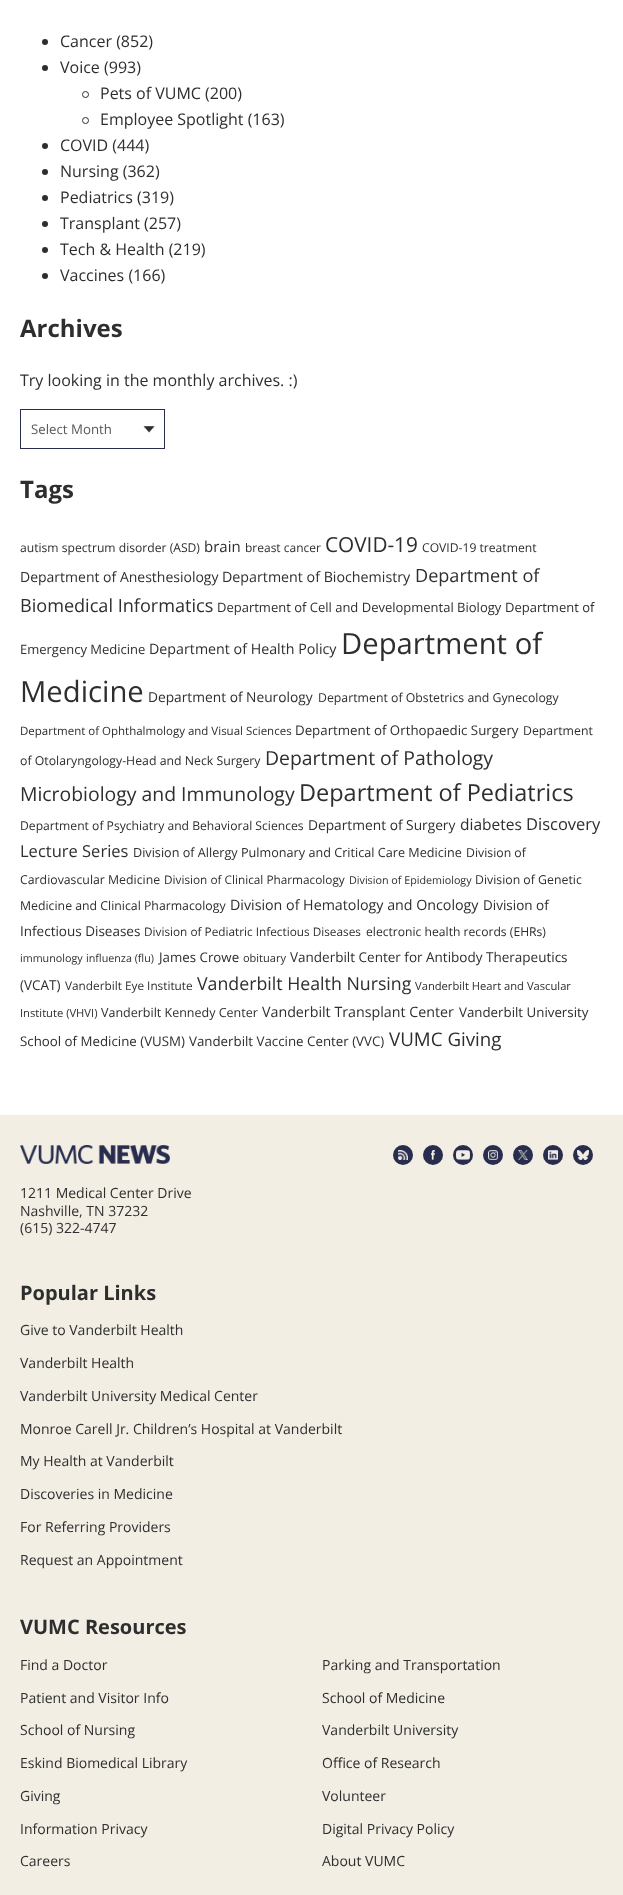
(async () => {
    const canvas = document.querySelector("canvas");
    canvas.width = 623;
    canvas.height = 1895;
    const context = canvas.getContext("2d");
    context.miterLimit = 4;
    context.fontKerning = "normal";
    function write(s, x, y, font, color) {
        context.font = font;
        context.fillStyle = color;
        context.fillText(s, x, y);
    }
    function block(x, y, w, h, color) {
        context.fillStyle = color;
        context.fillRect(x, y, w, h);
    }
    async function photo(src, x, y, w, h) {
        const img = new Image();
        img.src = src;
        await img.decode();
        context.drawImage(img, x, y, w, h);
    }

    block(0, 0, 623, 1895, "rgb(255, 255, 255)");
    context.fillStyle = "rgb(46, 46, 47)";
    context.beginPath();
    context.arc(45, 42, 3, 0, Math.PI * 2);
    context.fill();
    write("Cancer (852)", 60, 47, "16px Open Sans", "rgb(46, 46, 47)");
    context.beginPath();
    context.arc(45, 68, 3, 0, Math.PI * 2);
    context.fill();
    write("Voice (993)", 60, 73, "16px Open Sans", "rgb(46, 46, 47)");
    context.beginPath();
    context.arc(85.5, 94.5, 3, 0, Math.PI * 2);
    context.strokeStyle = "rgb(46, 46, 47)";
    context.stroke();
    write("Pets of VUMC (200)", 100, 99, "16px Open Sans", "rgb(46, 46, 47)");
    context.beginPath();
    context.arc(85.5, 120.5, 3, 0, Math.PI * 2);
    context.stroke();
    write("Employee Spotlight (163)", 100, 125, "16px Open Sans", "rgb(46, 46, 47)");
    context.beginPath();
    context.arc(45, 146, 3, 0, Math.PI * 2);
    context.fill();
    write("COVID (444)", 60, 151, "16px Open Sans", "rgb(46, 46, 47)");
    context.beginPath();
    context.arc(45, 172, 3, 0, Math.PI * 2);
    context.fill();
    write("Nursing (362)", 60, 177, "16px Open Sans", "rgb(46, 46, 47)");
    context.beginPath();
    context.arc(45, 198, 3, 0, Math.PI * 2);
    context.fill();
    write("Pediatrics (319)", 60, 203, "16px Open Sans", "rgb(46, 46, 47)");
    context.beginPath();
    context.arc(45, 224, 3, 0, Math.PI * 2);
    context.fill();
    write("Transplant (257)", 60, 229, "16px Open Sans", "rgb(46, 46, 47)");
    context.beginPath();
    context.arc(45, 250, 3, 0, Math.PI * 2);
    context.fill();
    write("Tech & Health (219)", 60, 255, "16px Open Sans", "rgb(46, 46, 47)");
    context.beginPath();
    context.arc(45, 276, 3, 0, Math.PI * 2);
    context.fill();
    write("Vaccines (166)", 60, 281, "16px Open Sans", "rgb(46, 46, 47)");
    write("Archives", 20, 337, "bold 24px Open Sans", "rgb(46, 46, 47)");
    write("Try looking in the monthly archives. :)", 20, 386, "16px Open Sans", "rgb(46, 46, 47)");
    context.strokeStyle = "rgb(40, 45, 78)";
    context.strokeRect(20.5, 409.5, 144, 39);
    write("Select Month", 31, 434, "13.25px Open Sans", "rgb(88, 89, 91)");
    await photo("media/1.png", 143, 426, 12, 7);
    write("Tags", 20, 498, "bold 24px Open Sans", "rgb(46, 46, 47)");
    write("autism spectrum disorder (ASD)", 20, 552, "12.15px Open Sans", "rgb(46, 46, 47)");
    write("brain", 204, 552, "15px Open Sans", "rgb(46, 46, 47)");
    write("breast cancer", 245, 552, "12px Open Sans", "rgb(46, 46, 47)");
    write("COVID-19", 325, 552, "20.75px Open Sans", "rgb(46, 46, 47)");
    write("COVID-19 treatment", 422, 552, "12.15px Open Sans", "rgb(46, 46, 47)");
    write("Department of Anesthesiology", 20, 582, "14px Open Sans", "rgb(46, 46, 47)");
    write("Department of Biochemistry", 222, 582, "14.25px Open Sans", "rgb(46, 46, 47)");
    write("Department of", 415, 582, "18.1px Open Sans", "rgb(46, 46, 47)");
    write("Biomedical Informatics", 20, 612, "18.1px Open Sans", "rgb(46, 46, 47)");
    write("Department of Cell and Developmental Biology", 217, 612, "13px Open Sans", "rgb(46, 46, 47)");
    write("Department of", 505, 612, "13px Open Sans", "rgb(46, 46, 47)");
    write("Emergency Medicine", 20, 654, "13px Open Sans", "rgb(46, 46, 47)");
    write("Department of Health Policy", 149, 654, "14.25px Open Sans", "rgb(46, 46, 47)");
    write("Department of", 341, 654, "29.25px Open Sans", "rgb(46, 46, 47)");
    write("Medicine", 20, 702, "29.25px Open Sans", "rgb(46, 46, 47)");
    write("Department of Neurology", 148, 702, "13.75px Open Sans", "rgb(46, 46, 47)");
    write("Department of Obstetrics and Gynecology", 318, 702, "12.3px Open Sans", "rgb(46, 46, 47)");
    write("Department of Ophthalmology and Visual Sciences", 20, 735, "11.5px Open Sans", "rgb(46, 46, 47)");
    write("Department of Orthopaedic Surgery", 295, 735, "13.3px Open Sans", "rgb(46, 46, 47)");
    write("Department", 523, 735, "12.3px Open Sans", "rgb(46, 46, 47)");
    write("of Otolaryngology-Head and Neck Surgery", 20, 765, "12.3px Open Sans", "rgb(46, 46, 47)");
    write("Department of Pathology", 265, 765, "19.4px Open Sans", "rgb(46, 46, 47)");
    write("Microbiology and Immunology", 20, 801, "19.4px Open Sans", "rgb(46, 46, 47)");
    write("Department of Pediatrics", 299, 801, "23.5px Open Sans", "rgb(46, 46, 47)");
    write("Department of Psychiatry and Behavioral Sciences", 20, 830, "12.15px Open Sans", "rgb(46, 46, 47)");
    write("Department of Surgery", 308, 830, "13.75px Open Sans", "rgb(46, 46, 47)");
    write("diabetes", 460, 830, "15.5px Open Sans", "rgb(46, 46, 47)");
    write("Discovery", 526, 830, "16.5px Open Sans", "rgb(46, 46, 47)");
    write("Lecture Series", 20, 857, "16.5px Open Sans", "rgb(46, 46, 47)");
    write("Division of Allergy Pulmonary and Critical Care Medicine", 133, 857, "12.65px Open Sans", "rgb(46, 46, 47)");
    write("Division of", 466, 857, "12.3px Open Sans", "rgb(46, 46, 47)");
    write("Cardiovascular Medicine", 20, 884, "12.3px Open Sans", "rgb(46, 46, 47)");
    write("Division of Clinical Pharmacology", 164, 884, "11.8px Open Sans", "rgb(46, 46, 47)");
    write("Division of Epidemiology", 349, 884, "10.75px Open Sans", "rgb(46, 46, 47)");
    write("Division of Genetic", 475, 884, "12.3px Open Sans", "rgb(46, 46, 47)");
    write("Medicine and Clinical Pharmacology", 20, 910, "12.3px Open Sans", "rgb(46, 46, 47)");
    write("Division of Hematology and Oncology", 230, 910, "14.25px Open Sans", "rgb(46, 46, 47)");
    write("Division of", 483, 910, "13.5px Open Sans", "rgb(46, 46, 47)");
    write("Infectious Diseases", 20, 936, "13.5px Open Sans", "rgb(46, 46, 47)");
    write("Division of Pediatric Infectious Diseases", 144, 936, "11.8px Open Sans", "rgb(46, 46, 47)");
    write("electronic health records (EHRs)", 366, 936, "12.15px Open Sans", "rgb(46, 46, 47)");
    write("immunology", 20, 962, "10.75px Open Sans", "rgb(46, 46, 47)");
    write("influenza (flu)", 86, 962, "10.75px Open Sans", "rgb(46, 46, 47)");
    write("James Crowe", 159, 962, "13.3px Open Sans", "rgb(46, 46, 47)");
    write("obituary", 243, 962, "11px Open Sans", "rgb(46, 46, 47)");
    write("Vanderbilt Center for Antibody Therapeutics", 290, 962, "13.5px Open Sans", "rgb(46, 46, 47)");
    write("(VCAT)", 20, 990, "13.5px Open Sans", "rgb(46, 46, 47)");
    write("Vanderbilt Eye Institute", 65, 990, "11.8px Open Sans", "rgb(46, 46, 47)");
    write("Vanderbilt Health Nursing", 197, 990, "17.75px Open Sans", "rgb(46, 46, 47)");
    write("Vanderbilt Heart and Vascular", 415, 990, "11.2px Open Sans", "rgb(46, 46, 47)");
    write("Institute (VHVI)", 20, 1017, "11.2px Open Sans", "rgb(46, 46, 47)");
    write("Vanderbilt Kennedy Center", 101, 1017, "12.5px Open Sans", "rgb(46, 46, 47)");
    write("Vanderbilt Transplant Center", 262, 1017, "14.25px Open Sans", "rgb(46, 46, 47)");
    write("Vanderbilt University", 459, 1017, "13.3px Open Sans", "rgb(46, 46, 47)");
    write("School of Medicine (VUSM)", 20, 1046, "13.3px Open Sans", "rgb(46, 46, 47)");
    write("Vanderbilt Vaccine Center (VVC)", 189, 1046, "13.3px Open Sans", "rgb(46, 46, 47)");
    write("VUMC Giving", 389, 1046, "18.75px Open Sans", "rgb(46, 46, 47)");
    block(0, 1115, 623, 780, "rgb(242, 238, 228)");
    context.fillStyle = "rgb(40, 45, 78)";
    context.beginPath();
    context.arc(403, 1155, 10, 0, Math.PI * 2);
    context.fill();
    await photo("media/2.png", 398, 1150, 10, 10);
    context.beginPath();
    context.arc(433, 1155, 10, 0, Math.PI * 2);
    context.fill();
    await photo("media/3.png", 431, 1150, 4, 10);
    context.beginPath();
    context.arc(463, 1155, 10, 0, Math.PI * 2);
    context.fill();
    await photo("media/4.png", 456, 1150, 14, 10);
    context.beginPath();
    context.arc(493, 1155, 10, 0, Math.PI * 2);
    context.fill();
    await photo("media/5.png", 488, 1150, 10, 10);
    context.beginPath();
    context.arc(523, 1155, 10, 0, Math.PI * 2);
    context.fill();
    await photo("media/6.png", 518, 1150, 10, 10);
    context.beginPath();
    context.arc(553, 1155, 10, 0, Math.PI * 2);
    context.fill();
    await photo("media/7.png", 548, 1150, 10, 10);
    context.beginPath();
    context.arc(583, 1155, 10, 0, Math.PI * 2);
    context.fill();
    await photo("media/8.png", 577, 1150, 12, 10);
    await photo("media/9.png", 20, 1145, 150, 19);
    write("1211 Medical Center Drive", 20, 1198, "14px Open Sans", "rgb(46, 46, 47)");
    write("Nashville, TN 37232", 20, 1216, "14px Open Sans", "rgb(46, 46, 47)");
    write("(615) 322-4747", 20, 1233, "14px Open Sans", "rgb(46, 46, 47)");
    write("Popular Links", 20, 1300, "bold 20px Open Sans", "rgb(46, 46, 47)");
    write("Give to Vanderbilt Health", 20, 1335, "14px Open Sans", "rgb(46, 46, 47)");
    write("Vanderbilt Health", 20, 1368, "14px Open Sans", "rgb(46, 46, 47)");
    write("Vanderbilt University Medical Center", 20, 1401, "14px Open Sans", "rgb(46, 46, 47)");
    write("Monroe Carell Jr. Children’s Hospital at Vanderbilt", 20, 1434, "14px Open Sans", "rgb(46, 46, 47)");
    write("My Health at Vanderbilt", 20, 1466, "14px Open Sans", "rgb(46, 46, 47)");
    write("Discoveries in Medicine", 20, 1499, "14px Open Sans", "rgb(46, 46, 47)");
    write("For Referring Providers", 20, 1532, "14px Open Sans", "rgb(46, 46, 47)");
    write("Request an Appointment", 20, 1565, "14px Open Sans", "rgb(46, 46, 47)");
    write("VUMC Resources", 20, 1634, "bold 20px Open Sans", "rgb(46, 46, 47)");
    write("Find a Doctor", 20, 1670, "14px Open Sans", "rgb(46, 46, 47)");
    write("Parking and Transportation", 322, 1670, "14px Open Sans", "rgb(46, 46, 47)");
    write("Patient and Visitor Info", 20, 1703, "14px Open Sans", "rgb(46, 46, 47)");
    write("School of Medicine", 322, 1703, "14px Open Sans", "rgb(46, 46, 47)");
    write("School of Nursing", 20, 1735, "14px Open Sans", "rgb(46, 46, 47)");
    write("Vanderbilt University", 322, 1735, "14px Open Sans", "rgb(46, 46, 47)");
    write("Eskind Biomedical Library", 20, 1768, "14px Open Sans", "rgb(46, 46, 47)");
    write("Office of Research", 322, 1768, "14px Open Sans", "rgb(46, 46, 47)");
    write("Giving", 20, 1801, "14px Open Sans", "rgb(46, 46, 47)");
    write("Volunteer", 322, 1801, "14px Open Sans", "rgb(46, 46, 47)");
    write("Information Privacy", 20, 1834, "14px Open Sans", "rgb(46, 46, 47)");
    write("Digital Privacy Policy", 322, 1834, "14px Open Sans", "rgb(46, 46, 47)");
    write("Careers", 20, 1866, "14px Open Sans", "rgb(46, 46, 47)");
    write("About VUMC", 322, 1866, "14px Open Sans", "rgb(46, 46, 47)");
})();
